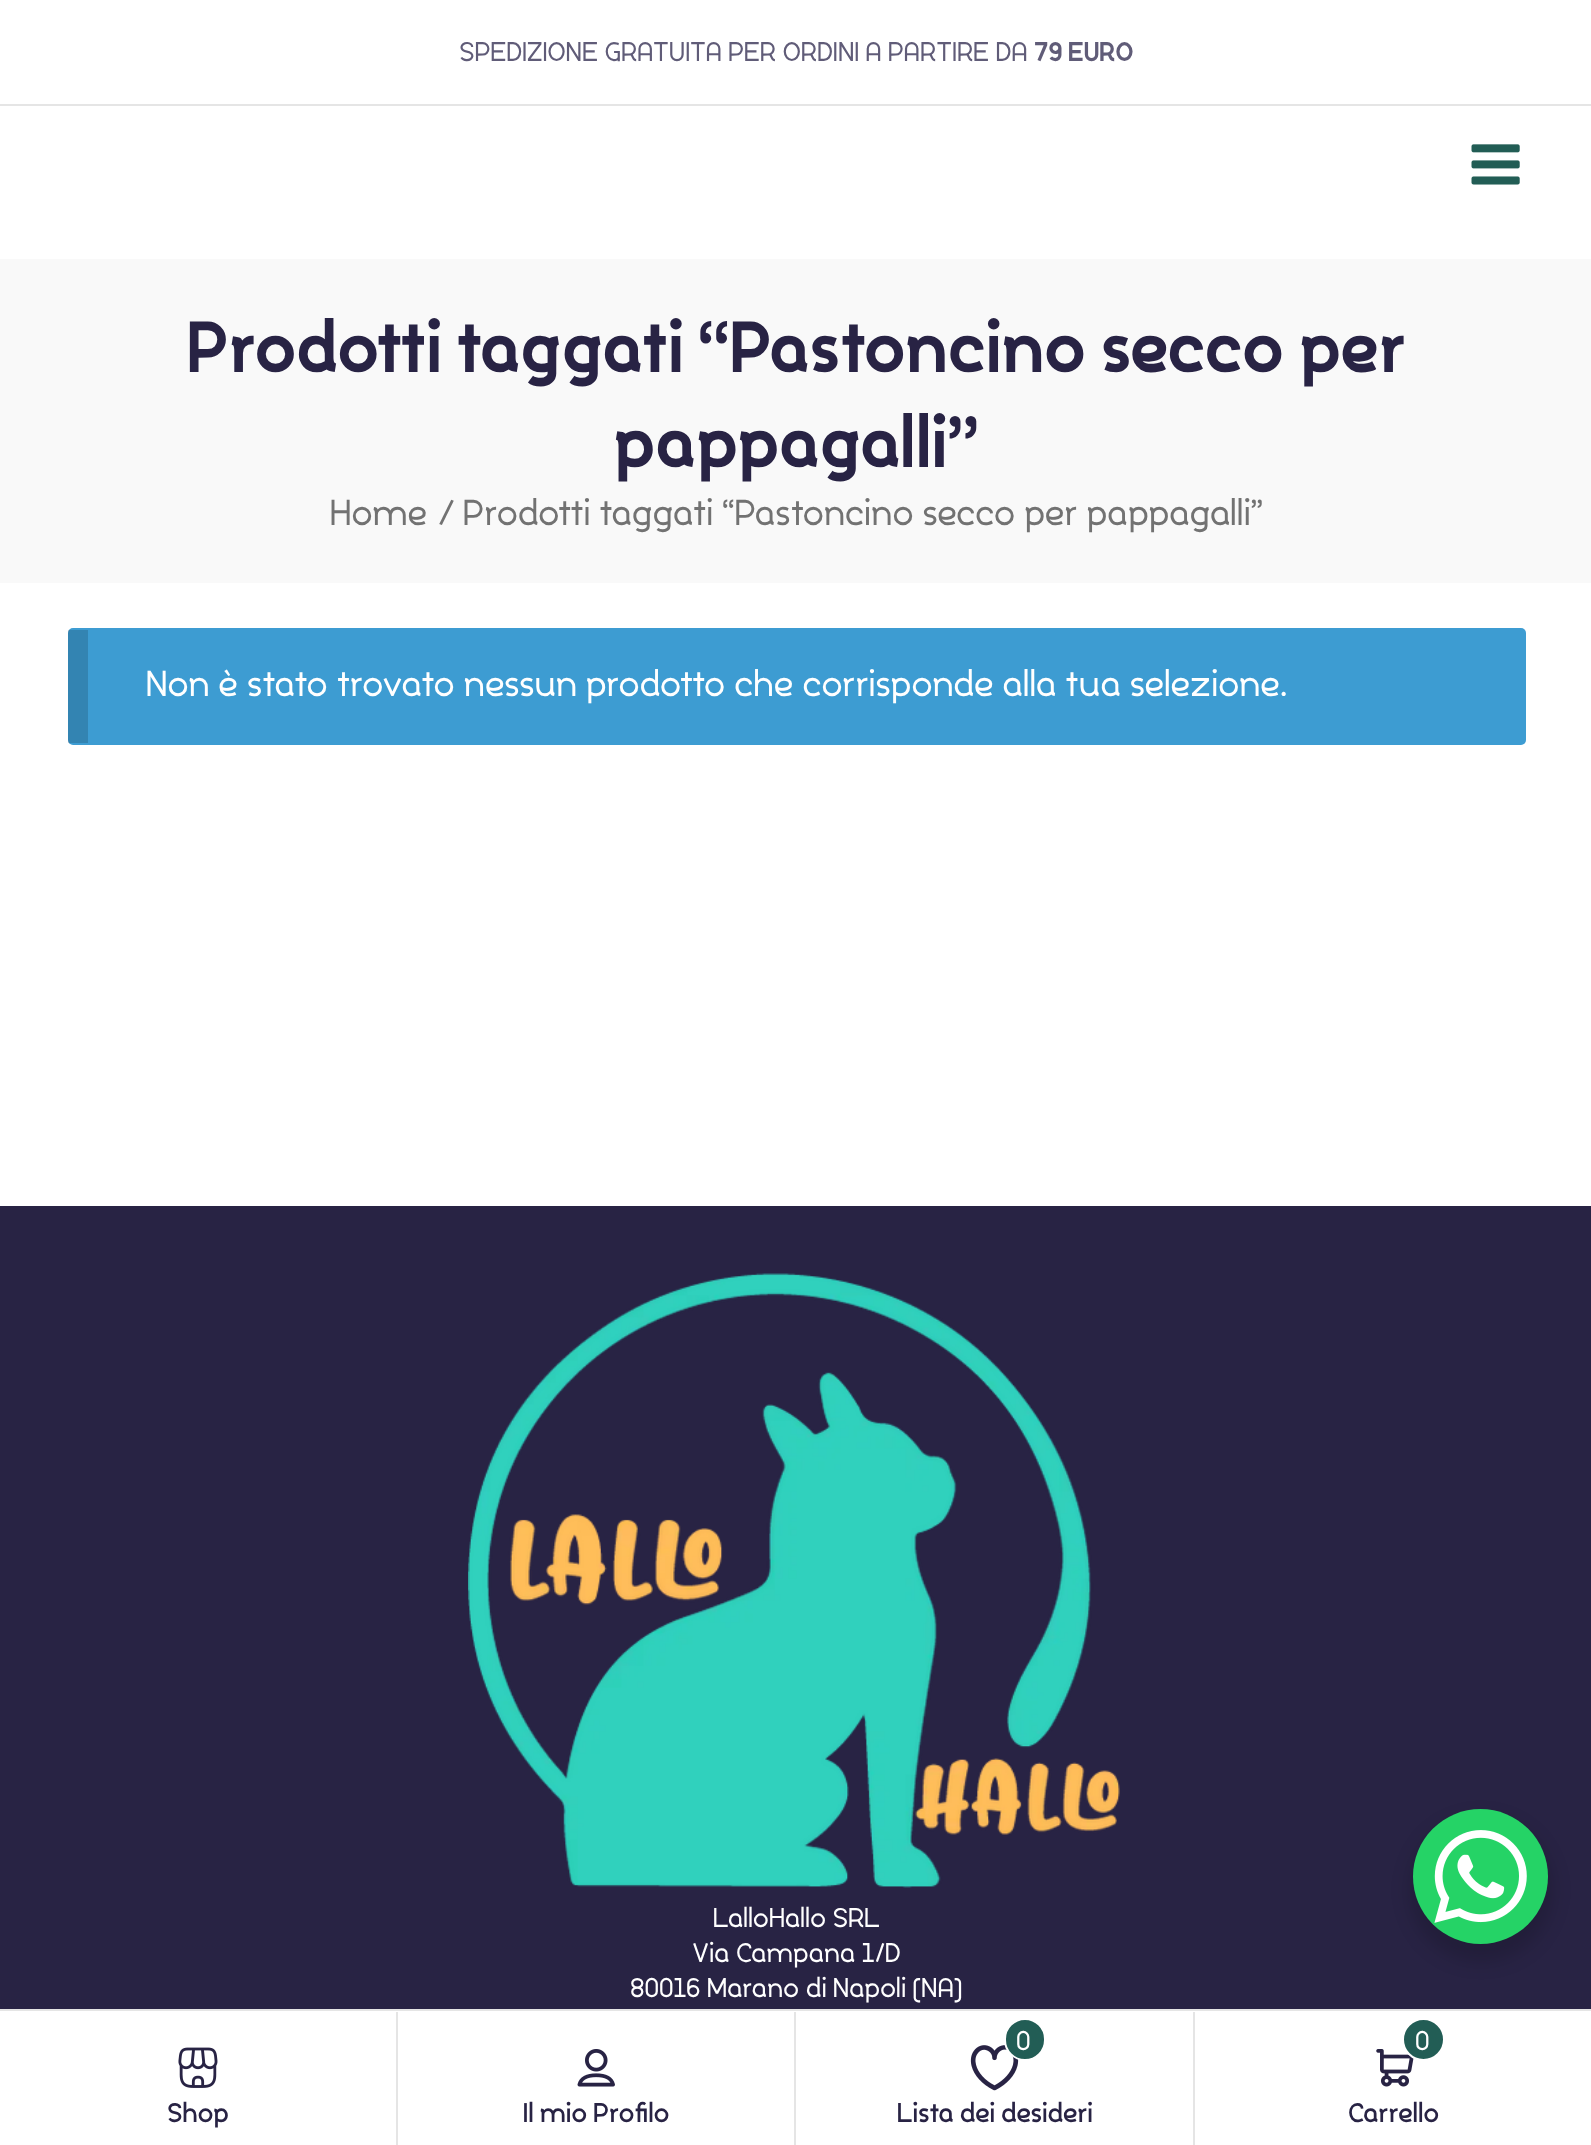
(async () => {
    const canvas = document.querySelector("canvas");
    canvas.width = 1591;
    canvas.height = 2145;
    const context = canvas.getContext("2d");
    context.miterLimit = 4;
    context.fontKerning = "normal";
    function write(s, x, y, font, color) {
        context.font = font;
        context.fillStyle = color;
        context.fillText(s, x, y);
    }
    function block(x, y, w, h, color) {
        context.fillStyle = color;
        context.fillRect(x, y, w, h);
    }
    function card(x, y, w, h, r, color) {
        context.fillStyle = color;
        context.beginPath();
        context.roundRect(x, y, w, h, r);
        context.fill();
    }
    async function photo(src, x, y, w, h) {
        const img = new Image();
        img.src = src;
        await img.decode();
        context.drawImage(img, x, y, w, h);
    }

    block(0, 0, 1591, 2145, "rgb(255, 255, 255)");
    block(0, 104, 1591, 2, "rgb(229, 229, 229)");
    write("SPEDIZIONE GRATUITA PER ORDINI A PARTIRE DA", 459, 61, "600 27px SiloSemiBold", "rgb(96, 92, 120)");
    write("79 EURO", 1034, 61, "800 27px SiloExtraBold", "rgb(96, 92, 120)");
    await photo("media/1.png", 1471, 144, 49, 41);
    block(0, 259, 1591, 324, "rgb(249, 249, 249)");
    write("Prodotti taggati “Pastoncino secco per", 187, 372, "800 72px SiloExtraBold", "rgb(40, 35, 68)");
    write("pappagalli”", 613, 467, "800 72px SiloExtraBold", "rgb(40, 35, 68)");
    write("Home", 330, 525, "600 36px SiloSemiBold", "rgb(114, 114, 114)");
    write("/", 438, 525, "italic 600 36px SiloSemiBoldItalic", "rgb(114, 114, 114)");
    write("Prodotti taggati “Pastoncino secco per pappagalli”", 463, 525, "600 36px SiloSemiBold", "rgb(114, 114, 114)");
    card(68, 628, 1458, 117, 5, "rgb(61, 156, 210)");
    block(68, 630, 20, 113, "rgba(0, 0, 0, 0.15)");
    write("Non è stato trovato nessun prodotto che corrisponde alla tua selezione.", 146, 696, "600 36px SiloSemiBold", "rgb(255, 255, 255)");
    block(0, 1206, 1591, 803, "rgb(40, 35, 68)");
    await photo("media/2.png", 468, 1273, 652, 615);
    write("LalloHallo SRL", 713, 1927, "600 27px SiloSemiBold", "rgb(255, 255, 255)");
    write("Via Campana 1/D", 692, 1962, "600 27px SiloSemiBold", "rgb(255, 255, 255)");
    write("80016 Marano di Napoli (NA)", 630, 1997, "600 27px SiloSemiBold", "rgb(255, 255, 255)");
    block(0, 2009, 1591, 2, "rgb(229, 229, 229)");
    block(396, 2012, 2, 133, "rgb(229, 229, 229)");
    await photo("media/3.png", 178, 2047, 40, 41);
    write("Shop", 167, 2122, "bold 27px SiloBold", "rgb(40, 35, 68)");
    block(794, 2012, 2, 133, "rgb(229, 229, 229)");
    await photo("media/4.png", 577, 2049, 38, 38);
    write("Il mio Profilo", 523, 2122, "bold 27px SiloBold", "rgb(40, 35, 68)");
    block(1193, 2012, 2, 133, "rgb(229, 229, 229)");
    await photo("media/5.png", 970, 2045, 49, 46);
    context.fillStyle = "rgb(34, 93, 85)";
    context.beginPath();
    context.roundRect(1005, 2019, 40, 41, 20);
    context.fill();
    context.strokeStyle = "rgb(255, 255, 255)";
    context.lineWidth = 2;
    context.stroke();
    write("0", 1016, 2050, "600 27px SiloSemiBold", "rgb(255, 255, 255)");
    write("Lista dei desideri", 897, 2122, "bold 27px SiloBold", "rgb(40, 35, 68)");
    await photo("media/6.png", 1376, 2049, 38, 38);
    context.fillStyle = "rgb(34, 93, 85)";
    context.beginPath();
    context.arc(1423.5, 2039.5, 20.5, 0, Math.PI * 2);
    context.fill();
    context.stroke();
    write("0", 1415, 2050, "600 27px SiloSemiBold", "rgb(255, 255, 255)");
    write("Carrello", 1348, 2122, "bold 27px SiloBold", "rgb(40, 35, 68)");
    context.fillStyle = "rgba(0, 0, 0, 0.15)";
    context.filter = "blur(9px)";
    context.beginPath();
    context.roundRect(1409, 1818, 144, 144, 72);
    context.fill();
    context.filter = "none";
    context.fillStyle = "rgb(37, 211, 102)";
    context.beginPath();
    context.arc(1480.5, 1876.5, 67.5, 0, Math.PI * 2);
    context.fill();
    await photo("media/7.png", 1434, 1830, 93, 93);
})();
